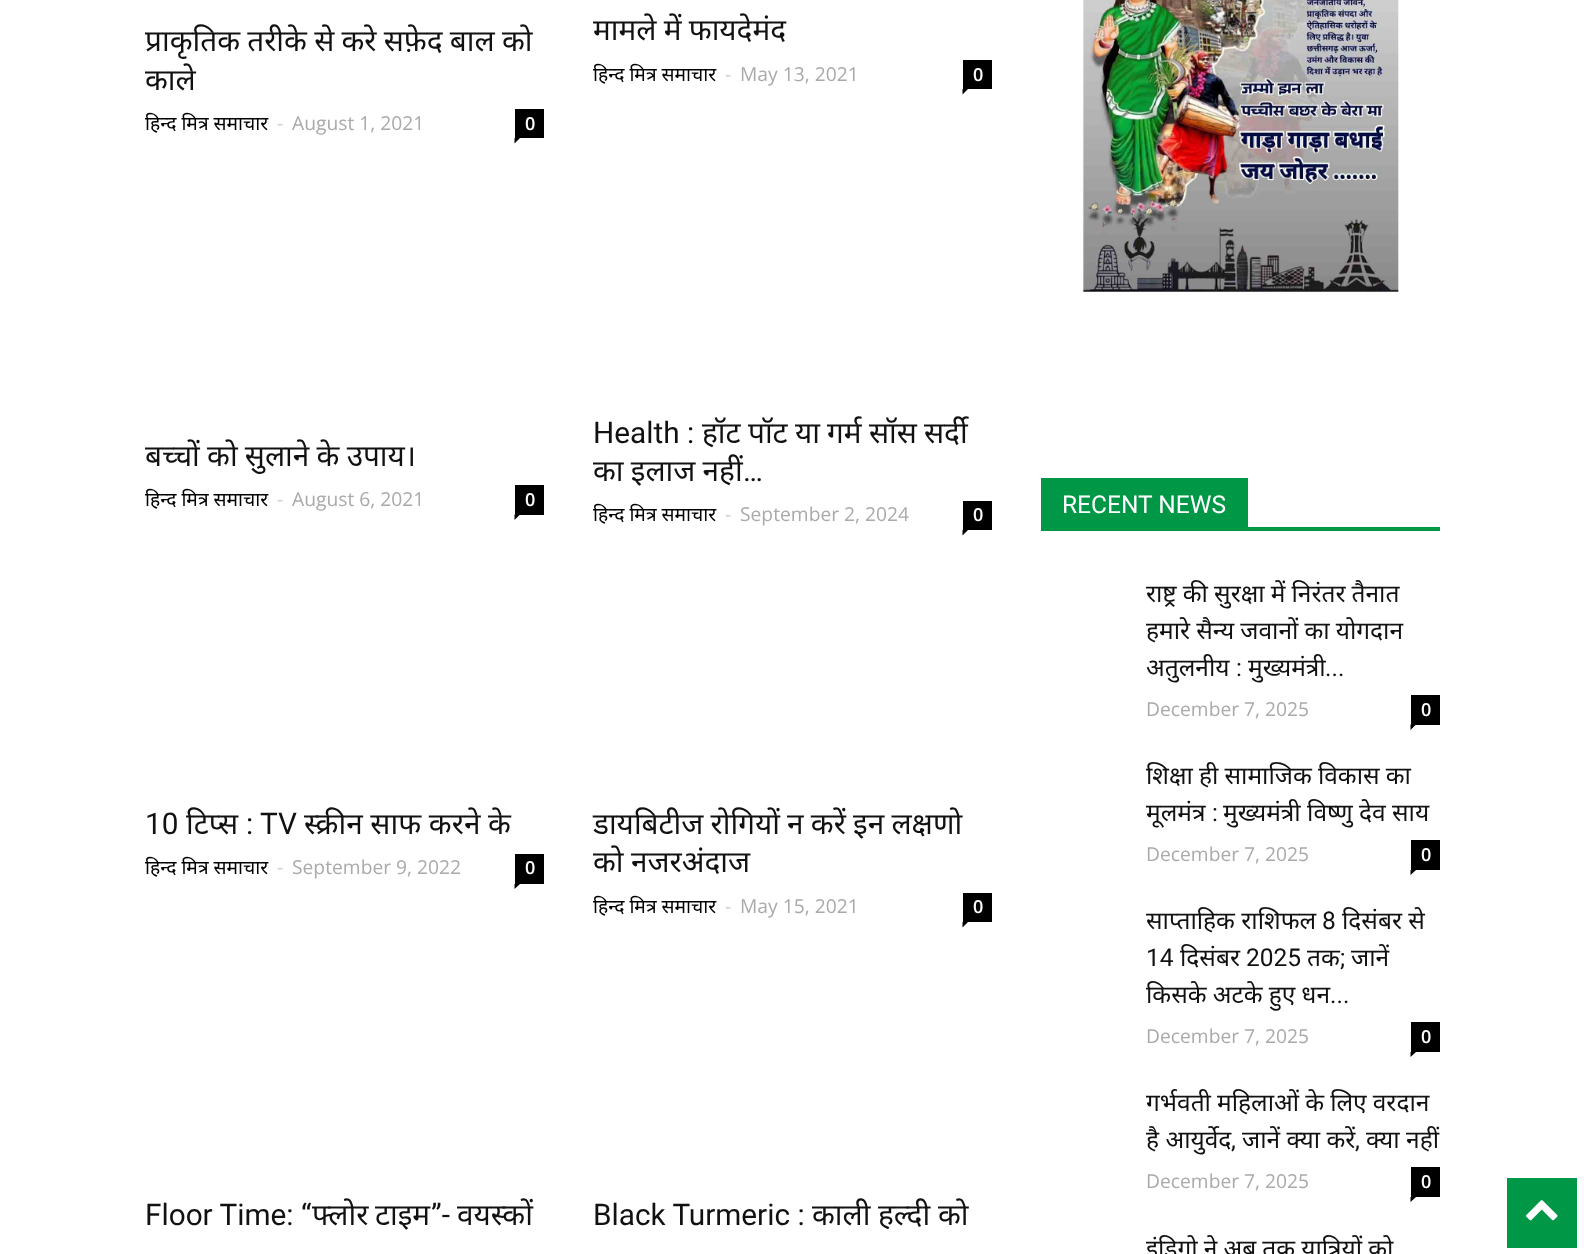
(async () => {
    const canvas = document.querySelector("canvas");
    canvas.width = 1584;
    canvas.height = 1254;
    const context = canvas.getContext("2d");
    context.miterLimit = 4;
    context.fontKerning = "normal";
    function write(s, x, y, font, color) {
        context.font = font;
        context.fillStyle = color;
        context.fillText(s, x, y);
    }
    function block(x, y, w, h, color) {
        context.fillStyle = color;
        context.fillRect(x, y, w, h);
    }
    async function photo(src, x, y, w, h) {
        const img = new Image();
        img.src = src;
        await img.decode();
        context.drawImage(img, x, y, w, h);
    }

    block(0, 0, 1584, 1254, "rgb(255, 255, 255)");
    context.wordSpacing = "-0.5px";
    write("प्राकृतिक तरीके से करे सफ़ेद बाल को", 145, 51, "29.75px Noto Sans", "rgb(17, 17, 17)");
    context.wordSpacing = "0px";
    write("काले", 145, 90, "29.75px Noto Sans", "rgb(17, 17, 17)");
    write("हिन्द मित्र समाचार", 145, 130, "19.25px Noto Sans", "rgb(0, 0, 0)");
    write("-", 277, 130, "19.25px Open Sans", "rgb(204, 204, 204)");
    write("August 1, 2021", 292, 130, "19.25px Open Sans", "rgb(170, 170, 170)");
    block(515, 109, 29, 29, "rgb(0, 0, 0)");
    write("0", 525, 130, "600 18px Open Sans", "rgb(255, 255, 255)");
    context.fillStyle = "rgb(0, 0, 0)";
    context.beginPath();
    context.moveTo(514.5, 138);
    context.lineTo(520, 138);
    context.lineTo(514.5, 143.5);
    context.closePath();
    context.fill();
    context.wordSpacing = "-0.5px";
    write("मामले में फायदेमंद", 593, 40, "29.75px Noto Sans", "rgb(17, 17, 17)");
    context.wordSpacing = "0px";
    write("हिन्द मित्र समाचार", 593, 81, "19.25px Noto Sans", "rgb(0, 0, 0)");
    write("-", 725, 81, "19.25px Open Sans", "rgb(204, 204, 204)");
    write("May 13, 2021", 740, 81, "19.25px Open Sans", "rgb(170, 170, 170)");
    block(963, 60, 29, 29, "rgb(0, 0, 0)");
    write("0", 973, 81, "600 18px Open Sans", "rgb(255, 255, 255)");
    context.fillStyle = "rgb(0, 0, 0)";
    context.beginPath();
    context.moveTo(962.5, 89);
    context.lineTo(968, 89);
    context.lineTo(962.5, 94.5);
    context.closePath();
    context.fill();
    context.wordSpacing = "-0.5px";
    write("बच्चों को सुलाने के उपाय।", 145, 466, "29.75px Noto Sans", "rgb(17, 17, 17)");
    context.wordSpacing = "0px";
    write("हिन्द मित्र समाचार", 145, 506, "19.25px Noto Sans", "rgb(0, 0, 0)");
    write("-", 277, 506, "19.25px Open Sans", "rgb(204, 204, 204)");
    write("August 6, 2021", 292, 506, "19.25px Open Sans", "rgb(170, 170, 170)");
    block(515, 485, 29, 30, "rgb(0, 0, 0)");
    write("0", 525, 506, "600 18px Open Sans", "rgb(255, 255, 255)");
    context.fillStyle = "rgb(0, 0, 0)";
    context.beginPath();
    context.moveTo(514.5, 514.5);
    context.lineTo(520, 514.5);
    context.lineTo(514.5, 520);
    context.closePath();
    context.fill();
    write("Health :", 593, 443, "29.75px Roboto", "rgb(17, 17, 17)");
    write("हॉट", 702, 443, "29.75px Noto Sans", "rgb(17, 17, 17)");
    write("पॉट", 748, 443, "29.75px Noto Sans", "rgb(17, 17, 17)");
    write("या", 795, 443, "29.75px Noto Sans", "rgb(17, 17, 17)");
    write("गर्म", 827, 443, "29.75px Noto Sans", "rgb(17, 17, 17)");
    write("सॉस", 869, 443, "29.75px Noto Sans", "rgb(17, 17, 17)");
    write("सर्दी", 924, 443, "29.75px Noto Sans", "rgb(17, 17, 17)");
    context.wordSpacing = "-0.5px";
    write("का इलाज नहीं", 593, 481, "29.75px Noto Sans", "rgb(17, 17, 17)");
    context.wordSpacing = "0px";
    write("…", 743, 481, "29.75px Roboto", "rgb(17, 17, 17)");
    write("हिन्द मित्र समाचार", 593, 521, "19.25px Noto Sans", "rgb(0, 0, 0)");
    write("-", 725, 521, "19.25px Open Sans", "rgb(204, 204, 204)");
    write("September 2, 2024", 740, 521, "19.25px Open Sans", "rgb(170, 170, 170)");
    block(963, 501, 29, 29, "rgb(0, 0, 0)");
    write("0", 973, 521, "600 18px Open Sans", "rgb(255, 255, 255)");
    context.fillStyle = "rgb(0, 0, 0)";
    context.beginPath();
    context.moveTo(962.5, 530);
    context.lineTo(968, 530);
    context.lineTo(962.5, 535.5);
    context.closePath();
    context.fill();
    write("10", 145, 834, "29.75px Roboto", "rgb(17, 17, 17)");
    write("टिप्स", 186, 834, "29.75px Noto Sans", "rgb(17, 17, 17)");
    write(": TV", 246, 834, "29.75px Roboto", "rgb(17, 17, 17)");
    write("स्क्रीन साफ करने के", 304, 834, "29.75px Noto Sans", "rgb(17, 17, 17)");
    write("हिन्द मित्र समाचार", 145, 874, "19.25px Noto Sans", "rgb(0, 0, 0)");
    write("-", 277, 874, "19.25px Open Sans", "rgb(204, 204, 204)");
    write("September 9, 2022", 292, 874, "19.25px Open Sans", "rgb(170, 170, 170)");
    block(515, 854, 29, 30, "rgb(0, 0, 0)");
    write("0", 525, 874, "600 18px Open Sans", "rgb(255, 255, 255)");
    context.fillStyle = "rgb(0, 0, 0)";
    context.beginPath();
    context.moveTo(514.5, 884);
    context.lineTo(520, 884);
    context.lineTo(514.5, 889);
    context.closePath();
    context.fill();
    context.wordSpacing = "-0.5px";
    write("डायबिटीज रोगियों न करें इन लक्षणो", 593, 834, "29.75px Noto Sans", "rgb(17, 17, 17)");
    context.wordSpacing = "0px";
    write("को", 593, 872, "29.75px Noto Sans", "rgb(17, 17, 17)");
    write("नजरअंदाज", 631, 872, "29.75px Noto Sans", "rgb(17, 17, 17)");
    write("हिन्द मित्र समाचार", 593, 913, "19.25px Noto Sans", "rgb(0, 0, 0)");
    write("-", 725, 913, "19.25px Open Sans", "rgb(204, 204, 204)");
    write("May 15, 2021", 740, 913, "19.25px Open Sans", "rgb(170, 170, 170)");
    block(963, 893, 29, 29, "rgb(0, 0, 0)");
    write("0", 973, 913, "600 18px Open Sans", "rgb(255, 255, 255)");
    context.fillStyle = "rgb(0, 0, 0)";
    context.beginPath();
    context.moveTo(962.5, 922);
    context.lineTo(968, 922);
    context.lineTo(962.5, 927.5);
    context.closePath();
    context.fill();
    write("Floor Time: “", 145, 1225, "29.75px Roboto", "rgb(17, 17, 17)");
    write("फ्लोर", 312, 1225, "29.75px Noto Sans", "rgb(17, 17, 17)");
    write("टाइम", 375, 1225, "29.75px Noto Sans", "rgb(17, 17, 17)");
    write("”-", 431, 1225, "29.75px Roboto", "rgb(17, 17, 17)");
    write("वयस्कों", 457, 1225, "29.75px Noto Sans", "rgb(17, 17, 17)");
    write("Black Turmeric :", 593, 1225, "29.75px Roboto", "rgb(17, 17, 17)");
    write("काली", 812, 1225, "29.75px Noto Sans", "rgb(17, 17, 17)");
    write("हल्दी", 878, 1225, "29.75px Noto Sans", "rgb(17, 17, 17)");
    write("को", 938, 1225, "29.75px Noto Sans", "rgb(17, 17, 17)");
    await photo("media/1.png", 1082, 0, 317, 292);
    block(1041, 527, 399, 4, "rgb(0, 151, 70)");
    block(1041, 478, 207, 49, "rgb(0, 151, 70)");
    write("RECENT NEWS", 1062, 513, "24.5px Roboto", "rgb(255, 255, 255)");
    context.wordSpacing = "-0.25px";
    write("राष्ट्र की सुरक्षा में निरंतर तैनात", 1146, 602, "24.5px Noto Sans", "rgb(17, 17, 17)");
    write("हमारे सैन्य जवानों का योगदान", 1146, 639, "24.5px Noto Sans", "rgb(17, 17, 17)");
    context.wordSpacing = "0px";
    write("अतुलनीय", 1146, 676, "24.5px Noto Sans", "rgb(17, 17, 17)");
    write(":", 1236, 676, "24.5px Roboto", "rgb(17, 17, 17)");
    write("मुख्यमंत्री", 1248, 676, "24.5px Noto Sans", "rgb(17, 17, 17)");
    write("...", 1325, 676, "24.5px Roboto", "rgb(17, 17, 17)");
    write("December 7, 2025", 1146, 716, "19.25px Open Sans", "rgb(170, 170, 170)");
    block(1411, 695, 29, 30, "rgb(0, 0, 0)");
    write("0", 1421, 716, "600 18px Open Sans", "rgb(255, 255, 255)");
    context.fillStyle = "rgb(0, 0, 0)";
    context.beginPath();
    context.moveTo(1410.5, 724.5);
    context.lineTo(1416, 724.5);
    context.lineTo(1410.5, 730);
    context.closePath();
    context.fill();
    context.wordSpacing = "-0.25px";
    write("शिक्षा ही सामाजिक विकास का", 1146, 784, "24.5px Noto Sans", "rgb(17, 17, 17)");
    context.wordSpacing = "0px";
    write("मूलमंत्र", 1146, 821, "24.5px Noto Sans", "rgb(17, 17, 17)");
    write(":", 1212, 821, "24.5px Roboto", "rgb(17, 17, 17)");
    write("मुख्यमंत्री विष्णु देव साय", 1223, 821, "24.5px Noto Sans", "rgb(17, 17, 17)");
    write("December 7, 2025", 1146, 861, "19.25px Open Sans", "rgb(170, 170, 170)");
    block(1411, 840, 29, 30, "rgb(0, 0, 0)");
    write("0", 1421, 861, "600 18px Open Sans", "rgb(255, 255, 255)");
    context.fillStyle = "rgb(0, 0, 0)";
    context.beginPath();
    context.moveTo(1410.5, 870);
    context.lineTo(1416, 870);
    context.lineTo(1410.5, 875);
    context.closePath();
    context.fill();
    write("साप्ताहिक राशिफल", 1146, 929, "24.5px Noto Sans", "rgb(17, 17, 17)");
    write("8", 1322, 929, "24.5px Roboto", "rgb(17, 17, 17)");
    write("दिसंबर से", 1342, 929, "24.5px Noto Sans", "rgb(17, 17, 17)");
    write("14", 1146, 966, "24.5px Roboto", "rgb(17, 17, 17)");
    write("दिसंबर", 1180, 966, "24.5px Noto Sans", "rgb(17, 17, 17)");
    write("2025", 1246, 966, "24.5px Roboto", "rgb(17, 17, 17)");
    write("तक", 1307, 966, "24.5px Noto Sans", "rgb(17, 17, 17)");
    write(";", 1340, 966, "24.5px Roboto", "rgb(17, 17, 17)");
    write("जानें", 1351, 966, "24.5px Noto Sans", "rgb(17, 17, 17)");
    context.wordSpacing = "-0.25px";
    write("किसके अटके हुए धन", 1146, 1003, "24.5px Noto Sans", "rgb(17, 17, 17)");
    context.wordSpacing = "0px";
    write("...", 1330, 1003, "24.5px Roboto", "rgb(17, 17, 17)");
    write("December 7, 2025", 1146, 1043, "19.25px Open Sans", "rgb(170, 170, 170)");
    block(1411, 1022, 29, 30, "rgb(0, 0, 0)");
    write("0", 1421, 1043, "600 18px Open Sans", "rgb(255, 255, 255)");
    context.fillStyle = "rgb(0, 0, 0)";
    context.beginPath();
    context.moveTo(1410.5, 1052);
    context.lineTo(1416, 1052);
    context.lineTo(1410.5, 1057);
    context.closePath();
    context.fill();
    context.wordSpacing = "-0.25px";
    write("गर्भवती महिलाओं के लिए वरदान", 1146, 1111, "24.5px Noto Sans", "rgb(17, 17, 17)");
    context.wordSpacing = "0px";
    write("है आयुर्वेद", 1146, 1148, "24.5px Noto Sans", "rgb(17, 17, 17)");
    write(",", 1231, 1148, "24.5px Roboto", "rgb(17, 17, 17)");
    write("जानें क्या करें", 1242, 1148, "24.5px Noto Sans", "rgb(17, 17, 17)");
    write(",", 1355, 1148, "24.5px Roboto", "rgb(17, 17, 17)");
    write("क्या नहीं", 1366, 1148, "24.5px Noto Sans", "rgb(17, 17, 17)");
    write("December 7, 2025", 1146, 1188, "19.25px Open Sans", "rgb(170, 170, 170)");
    block(1411, 1167, 29, 30, "rgb(0, 0, 0)");
    write("0", 1421, 1188, "600 18px Open Sans", "rgb(255, 255, 255)");
    context.fillStyle = "rgb(0, 0, 0)";
    context.beginPath();
    context.moveTo(1410.5, 1197);
    context.lineTo(1416, 1197);
    context.lineTo(1410.5, 1202);
    context.closePath();
    context.fill();
    context.wordSpacing = "-0.25px";
    write("इंडिगो ने अब तक यात्रियों को", 1146, 1257, "24.5px Noto Sans", "rgb(17, 17, 17)");
    block(1507, 1178, 70, 70, "rgb(0, 151, 70)");
    await photo("media/2.png", 1526, 1200, 32, 21);
})();
